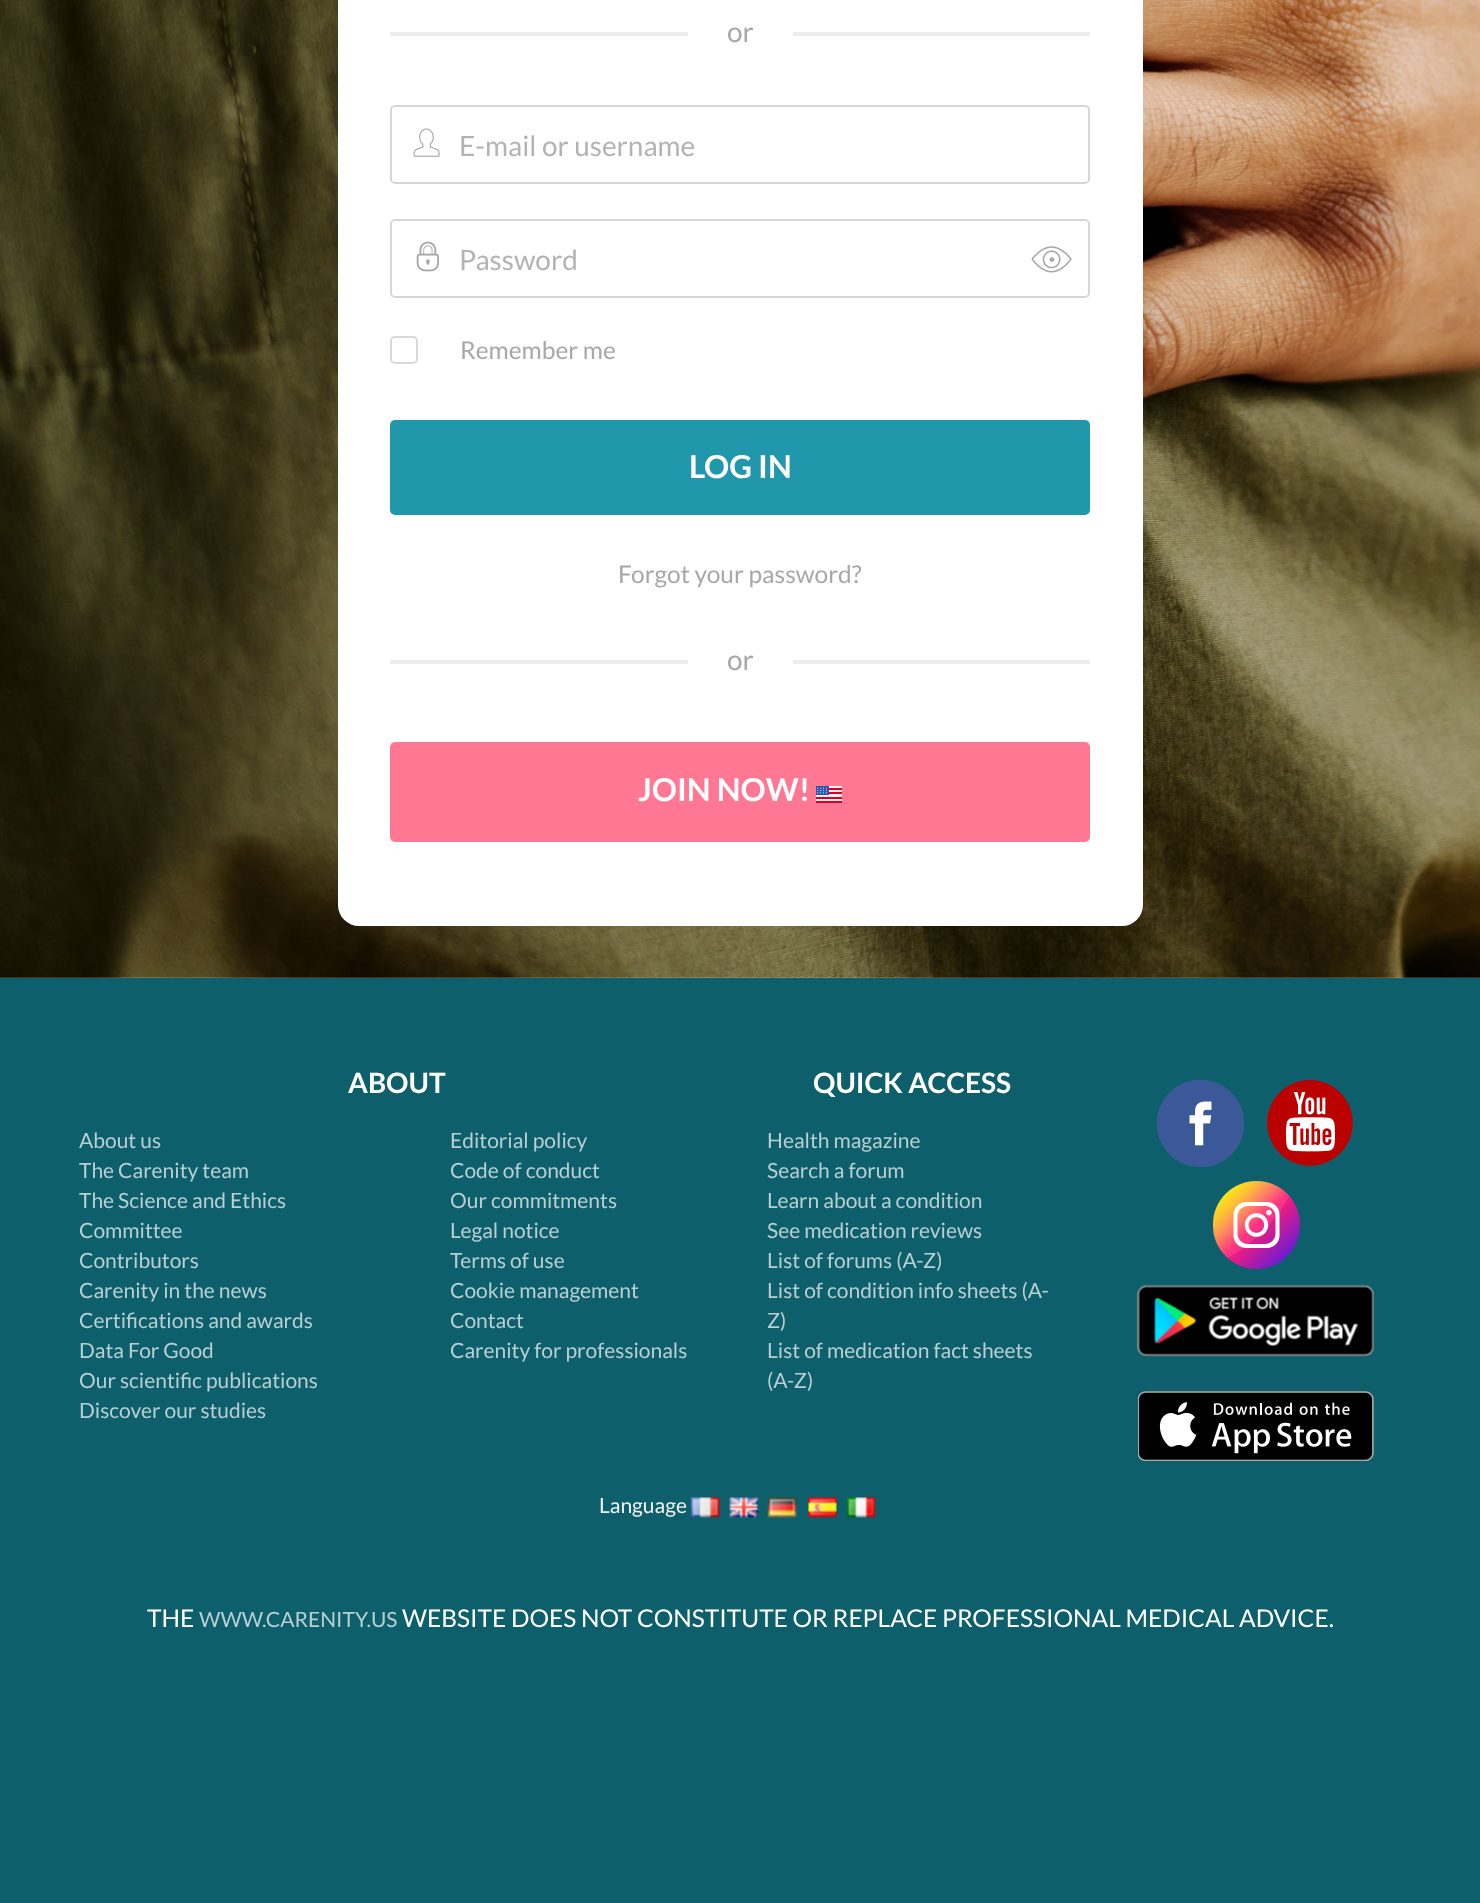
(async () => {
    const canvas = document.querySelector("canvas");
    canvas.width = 1480;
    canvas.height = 1903;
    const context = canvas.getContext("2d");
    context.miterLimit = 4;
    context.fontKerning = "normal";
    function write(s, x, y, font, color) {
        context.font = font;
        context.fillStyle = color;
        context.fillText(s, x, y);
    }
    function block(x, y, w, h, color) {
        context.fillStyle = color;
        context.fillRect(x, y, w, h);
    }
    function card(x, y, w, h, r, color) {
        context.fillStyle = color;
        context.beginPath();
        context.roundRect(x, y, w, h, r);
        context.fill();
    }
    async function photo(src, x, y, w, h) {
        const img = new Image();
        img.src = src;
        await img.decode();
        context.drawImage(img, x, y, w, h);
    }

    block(0, 0, 1480, 1903, "rgb(255, 255, 255)");
    await photo("media/1.png", 0, 0, 1480, 978);
    card(338, -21, 805, 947, 21, "rgb(255, 255, 255)");
    block(390, 32, 700, 4, "rgb(236, 236, 236)");
    block(688, 32, 105, 4, "rgb(255, 255, 255)");
    write("or", 727, 42, "28px Lato", "rgb(168, 168, 168)");
    context.beginPath();
    context.roundRect(391, 106, 698, 77, 4);
    context.strokeStyle = "rgb(214, 214, 214)";
    context.lineWidth = 2;
    context.stroke();
    await photo("media/2.png", 413, 128, 27, 29);
    write("E-mail or username", 459, 156, "28px Lato", "rgb(179, 179, 179)");
    context.beginPath();
    context.roundRect(391, 220, 698, 77, 4);
    context.stroke();
    await photo("media/3.png", 416, 241, 23, 31);
    write("Password", 459, 270, "28px Lato", "rgb(179, 179, 179)");
    await photo("media/4.png", 1031, 246, 41, 27);
    context.beginPath();
    context.roundRect(391, 337, 26, 26, 4);
    context.strokeStyle = "rgb(217, 217, 217)";
    context.stroke();
    write("Remember me", 460, 359, "24.5px Lato", "rgb(168, 168, 168)");
    card(390, 420, 700, 95, 5, "rgb(33, 151, 171)");
    write("LOG IN", 689, 478, "bold 31.5px Lato", "rgb(255, 255, 255)");
    write("Forgot your password?", 618, 583, "24.5px Lato", "rgb(168, 168, 168)");
    block(390, 660, 700, 4, "rgb(236, 236, 236)");
    block(688, 660, 105, 4, "rgb(255, 255, 255)");
    write("or", 727, 670, "28px Lato", "rgb(168, 168, 168)");
    context.fillStyle = "rgb(255, 119, 147)";
    context.beginPath();
    context.roundRect(391, 743, 698, 98, 4);
    context.fill();
    context.strokeStyle = "rgb(255, 119, 147)";
    context.stroke();
    write("JOIN NOW!", 638, 801, "bold 31.5px Lato", "rgb(255, 255, 255)");
    await photo("media/5.png", 816, 786, 26, 17);
    block(0, 978, 1480, 925, "rgb(14, 95, 108)");
    write("About us", 79, 1148, "21px Lato", "rgb(183, 207, 211)");
    write("The Carenity team", 79, 1178, "21px Lato", "rgb(183, 207, 211)");
    write("The Science and Ethics", 79, 1208, "21px Lato", "rgb(183, 207, 211)");
    write("Committee", 79, 1238, "21px Lato", "rgb(183, 207, 211)");
    write("Contributors", 79, 1268, "21px Lato", "rgb(183, 207, 211)");
    write("Carenity in the news", 79, 1298, "21px Lato", "rgb(183, 207, 211)");
    write("Certifications and awards", 79, 1328, "21px Lato", "rgb(183, 207, 211)");
    write("Data For Good", 79, 1358, "21px Lato", "rgb(183, 207, 211)");
    write("Our scientific publications", 79, 1388, "21px Lato", "rgb(183, 207, 211)");
    write("Discover our studies", 79, 1418, "21px Lato", "rgb(183, 207, 211)");
    write("ABOUT", 348, 1093, "bold 28px Lato", "rgb(255, 255, 255)");
    write("Editorial policy", 450, 1148, "21px Lato", "rgb(183, 207, 211)");
    write("Code of conduct", 450, 1178, "21px Lato", "rgb(183, 207, 211)");
    write("Our commitments", 450, 1208, "21px Lato", "rgb(183, 207, 211)");
    write("Legal notice", 450, 1238, "21px Lato", "rgb(183, 207, 211)");
    write("Terms of use", 450, 1268, "21px Lato", "rgb(183, 207, 211)");
    write("Cookie management", 450, 1298, "21px Lato", "rgb(183, 207, 211)");
    write("Contact", 450, 1328, "21px Lato", "rgb(183, 207, 211)");
    write("Carenity for professionals", 450, 1358, "21px Lato", "rgb(183, 207, 211)");
    write("QUICK ACCESS", 813, 1093, "bold 28px Lato", "rgb(255, 255, 255)");
    await photo("media/6.png", 1157, 1080, 87, 87);
    await photo("media/7.png", 1267, 1080, 86, 86);
    await photo("media/8.png", 1213, 1181, 87, 88);
    await photo("media/9.png", 1136, 1284, 239, 73);
    await photo("media/10.png", 1138, 1391, 236, 70);
    write("Health magazine", 767, 1148, "21px Lato", "rgb(183, 207, 211)");
    write("Search a forum", 767, 1178, "21px Lato", "rgb(183, 207, 211)");
    write("Learn about a condition", 767, 1208, "21px Lato", "rgb(183, 207, 211)");
    write("See medication reviews", 767, 1238, "21px Lato", "rgb(183, 207, 211)");
    write("List of forums (A-Z)", 767, 1268, "21px Lato", "rgb(183, 207, 211)");
    write("List of condition info sheets (A-", 767, 1298, "21px Lato", "rgb(183, 207, 211)");
    write("Z)", 767, 1328, "21px Lato", "rgb(183, 207, 211)");
    write("List of medication fact sheets", 767, 1358, "21px Lato", "rgb(183, 207, 211)");
    write("(A-Z)", 767, 1388, "21px Lato", "rgb(183, 207, 211)");
    write("Language", 599, 1513, "21px Lato", "rgb(243, 243, 243)");
    await photo("media/11.png", 690, 1497, 30, 21);
    await photo("media/12.png", 729, 1497, 30, 21);
    await photo("media/13.png", 767, 1497, 30, 21);
    await photo("media/14.png", 808, 1497, 29, 21);
    await photo("media/15.png", 846, 1497, 30, 21);
    write("THE", 147, 1627, "24.5px Lato", "rgb(255, 255, 255)");
    write("WWW.CARENITY.US", 199, 1627, "21px Lato", "rgb(183, 207, 211)");
    write("WEBSITE DOES NOT CONSTITUTE OR REPLACE PROFESSIONAL MEDICAL ADVICE.", 402, 1627, "24.5px Lato", "rgb(255, 255, 255)");
})();
